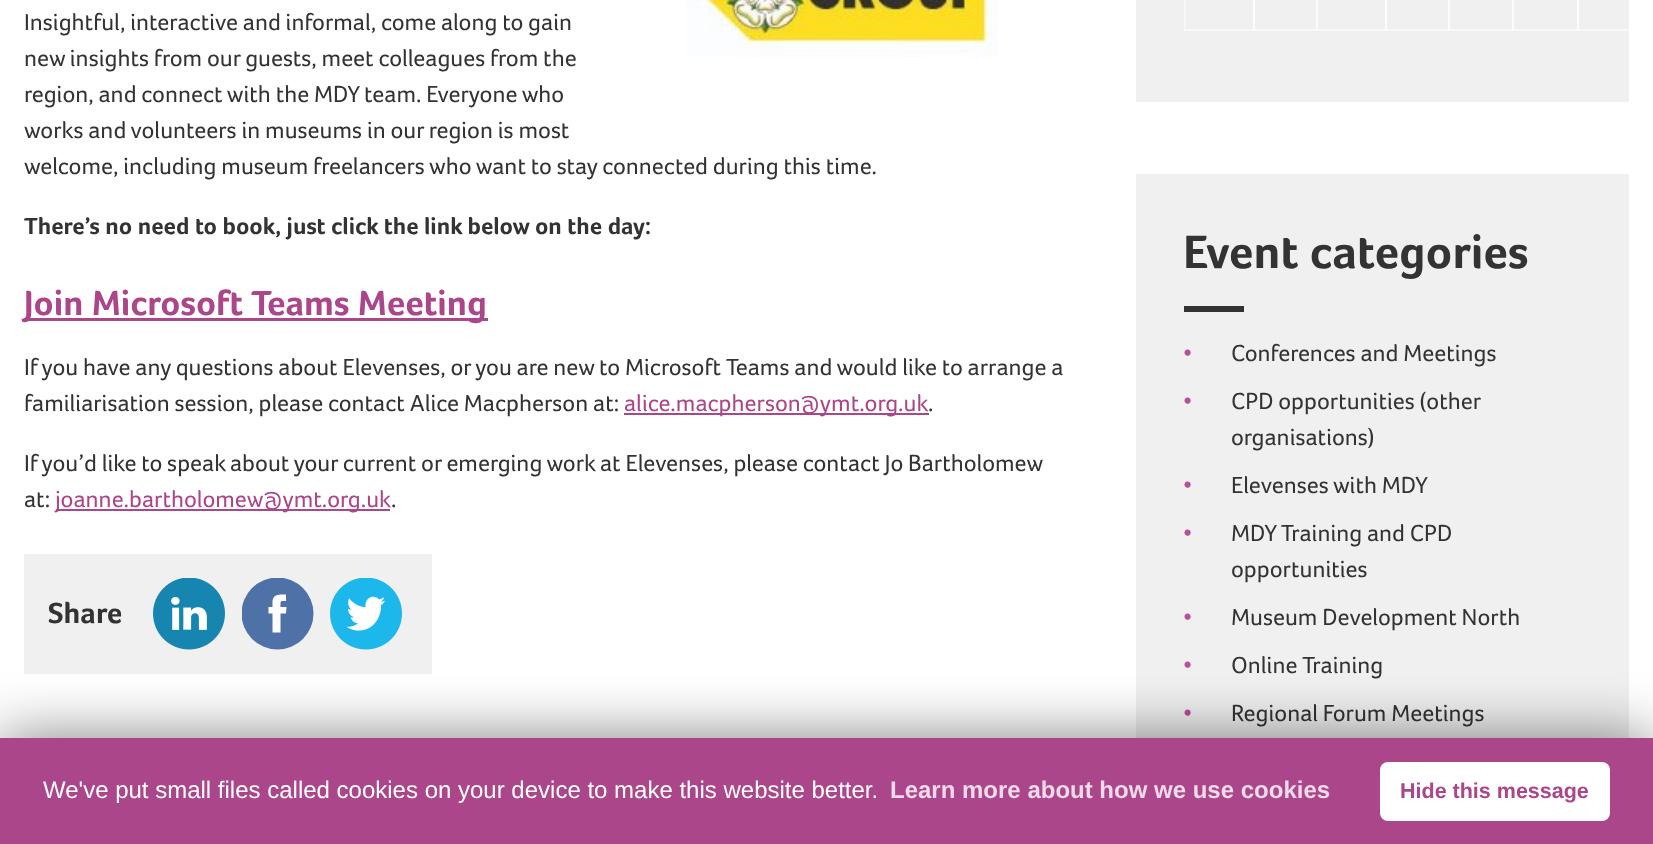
(async () => {
    const canvas = document.querySelector("canvas");
    canvas.width = 1653;
    canvas.height = 844;
    const context = canvas.getContext("2d");
    context.miterLimit = 4;
    context.fontKerning = "normal";
    function write(s, x, y, font, color) {
        context.font = font;
        context.fillStyle = color;
        context.fillText(s, x, y);
    }
    function block(x, y, w, h, color) {
        context.fillStyle = color;
        context.fillRect(x, y, w, h);
    }
    function card(x, y, w, h, r, color) {
        context.fillStyle = color;
        context.beginPath();
        context.roundRect(x, y, w, h, r);
        context.fill();
    }
    async function photo(src, x, y, w, h) {
        const img = new Image();
        img.src = src;
        await img.decode();
        context.drawImage(img, x, y, w, h);
    }

    block(0, 0, 1653, 844, "rgb(255, 255, 255)");
    await photo("media/1.png", 686, 0, 312, 57);
    write("Insightful, interactive and informal, come along to gain", 24, 30, "24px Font", "rgb(51, 51, 51)");
    write("new insights from our guests, meet colleagues from the", 24, 66, "24px Font", "rgb(51, 51, 51)");
    write("region, and connect with the MDY team. Everyone who", 24, 102, "24px Font", "rgb(51, 51, 51)");
    write("works and volunteers in museums in our region is most", 24, 138, "24px Font", "rgb(51, 51, 51)");
    write("welcome, including museum freelancers who want to stay connected during this time.", 24, 174, "24px Font", "rgb(51, 51, 51)");
    write("There’s no need to book, just click the link below on the day:", 24, 234, "bold 24px Font", "rgb(51, 51, 51)");
    block(24, 318, 464, 3, "rgb(171, 70, 138)");
    write("Join Microsoft Teams Meeting", 24, 315, "bold 36px Font", "rgb(171, 70, 138)");
    write("If you have any questions about Elevenses, or you are new to Microsoft Teams and would like to arrange a", 24, 375, "24px Font", "rgb(51, 51, 51)");
    write("familiarisation session, please contact Alice Macpherson at:", 24, 411, "24px Font", "rgb(51, 51, 51)");
    block(624, 413, 305, 2, "rgb(171, 70, 138)");
    write("alice.macpherson@ymt.org.uk", 624, 411, "24px Font", "rgb(171, 70, 138)");
    write(".", 928, 411, "24px Font", "rgb(51, 51, 51)");
    write("If you’d like to speak about your current or emerging work at Elevenses, please contact Jo Bartholomew", 24, 471, "24px Font", "rgb(51, 51, 51)");
    write("at:", 24, 507, "24px Font", "rgb(51, 51, 51)");
    block(56, 509, 334, 2, "rgb(171, 70, 138)");
    write("joanne.bartholomew@ymt.org.uk", 55, 507, "24px Font", "rgb(171, 70, 138)");
    write(".", 391, 507, "24px Font", "rgb(51, 51, 51)");
    block(24, 554, 408, 120, "rgb(240, 240, 240)");
    write("Share", 48, 623, "bold 30px Font", "rgb(51, 51, 51)");
    await photo("media/2.png", 153, 578, 72, 72);
    context.save();
    context.beginPath();
    context.rect(242, 578, 72, 72);
    context.clip();
    context.fillStyle = "rgb(78, 113, 168)";
    context.beginPath();
    context.arc(277.5, 613.5, 36, 0, Math.PI * 2);
    context.fill();
    context.restore();
    context.fillStyle = "rgb(255, 255, 255)";
    context.beginPath();
    context.moveTo(286.5, 607);
    context.lineTo(280.5, 607);
    context.bezierCurveTo(280.5, 600, 280, 601, 286, 601);
    context.lineTo(286, 594.5);
    context.bezierCurveTo(280.5, 594.5, 273.5, 593.5, 272.5, 601);
    context.lineTo(272.5, 607);
    context.lineTo(268.5, 607);
    context.lineTo(268.5, 613.5);
    context.lineTo(272.5, 613.5);
    context.lineTo(272.5, 632.5);
    context.lineTo(280.5, 632.5);
    context.lineTo(280.5, 613.5);
    context.lineTo(286, 613.5);
    context.closePath();
    context.fill();
    await photo("media/3.png", 330, 578, 72, 72);
    block(1136, 0, 493, 102, "rgb(240, 240, 240)");
    block(1184, 29, 445, 2, "rgb(248, 248, 248)");
    block(1253, 29, 1, 2, "rgb(252, 252, 252)");
    block(1316, 29, 1, 2, "rgb(252, 252, 252)");
    block(1385, 29, 1, 2, "rgb(252, 252, 252)");
    block(1448, 29, 1, 2, "rgb(252, 252, 252)");
    block(1512, 0, 2, 31, "rgb(252, 252, 252)");
    block(1577, 29, 1, 2, "rgb(252, 252, 252)");
    block(1253, 0, 2, 30, "rgb(252, 252, 252)");
    block(1184, 0, 2, 30, "rgb(248, 248, 248)");
    block(1316, 0, 2, 30, "rgb(252, 252, 252)");
    block(1385, 0, 2, 30, "rgb(252, 252, 252)");
    block(1448, 0, 2, 30, "rgb(252, 252, 252)");
    block(1577, 0, 2, 30, "rgb(252, 252, 252)");
    block(1136, 174, 493, 564, "rgb(240, 240, 240)");
    write("Event categories", 1183, 268, "bold 48px Font", "rgb(51, 51, 51)");
    block(1184, 306, 60, 6, "rgb(51, 51, 51)");
    write("•", 1183, 361, "24px Font", "rgb(185, 79, 153)");
    write("Conferences and Meetings", 1231, 361, "24px Font", "rgb(51, 51, 51)");
    write("•", 1183, 409, "24px Font", "rgb(185, 79, 153)");
    write("CPD opportunities (other", 1231, 409, "24px Font", "rgb(51, 51, 51)");
    write("organisations)", 1231, 445, "24px Font", "rgb(51, 51, 51)");
    write("•", 1183, 493, "24px Font", "rgb(185, 79, 153)");
    write("Elevenses with MDY", 1231, 493, "24px Font", "rgb(51, 51, 51)");
    write("•", 1183, 541, "24px Font", "rgb(185, 79, 153)");
    write("MDY Training and CPD", 1231, 541, "24px Font", "rgb(51, 51, 51)");
    write("opportunities", 1231, 577, "24px Font", "rgb(51, 51, 51)");
    write("•", 1183, 625, "24px Font", "rgb(185, 79, 153)");
    write("Museum Development North", 1231, 625, "24px Font", "rgb(51, 51, 51)");
    write("•", 1183, 673, "24px Font", "rgb(185, 79, 153)");
    write("Online Training", 1231, 673, "24px Font", "rgb(51, 51, 51)");
    write("•", 1183, 721, "24px Font", "rgb(185, 79, 153)");
    write("Regional Forum Meetings", 1231, 721, "24px Font", "rgb(51, 51, 51)");
    context.fillStyle = "rgba(0, 0, 0, 0.5)";
    context.filter = "blur(30px)";
    context.beginPath();
    context.rect(0, 738, 1653, 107);
    context.fill();
    context.filter = "none";
    block(0, 738, 1653, 106, "rgb(171, 70, 138)");
    write("We've put small files called cookies on your device to make this website better.", 43, 798, "24px Liberation Sans", "rgb(255, 255, 255)");
    write("Learn more about how we use cookies", 890, 798, "bold 24px Liberation Sans", "rgb(238, 218, 232)");
    card(1380, 762, 230, 59, 8, "rgb(255, 255, 255)");
    write("Hide this message", 1400, 798, "bold 21.5px Liberation Sans", "rgb(171, 70, 138)");
})();
